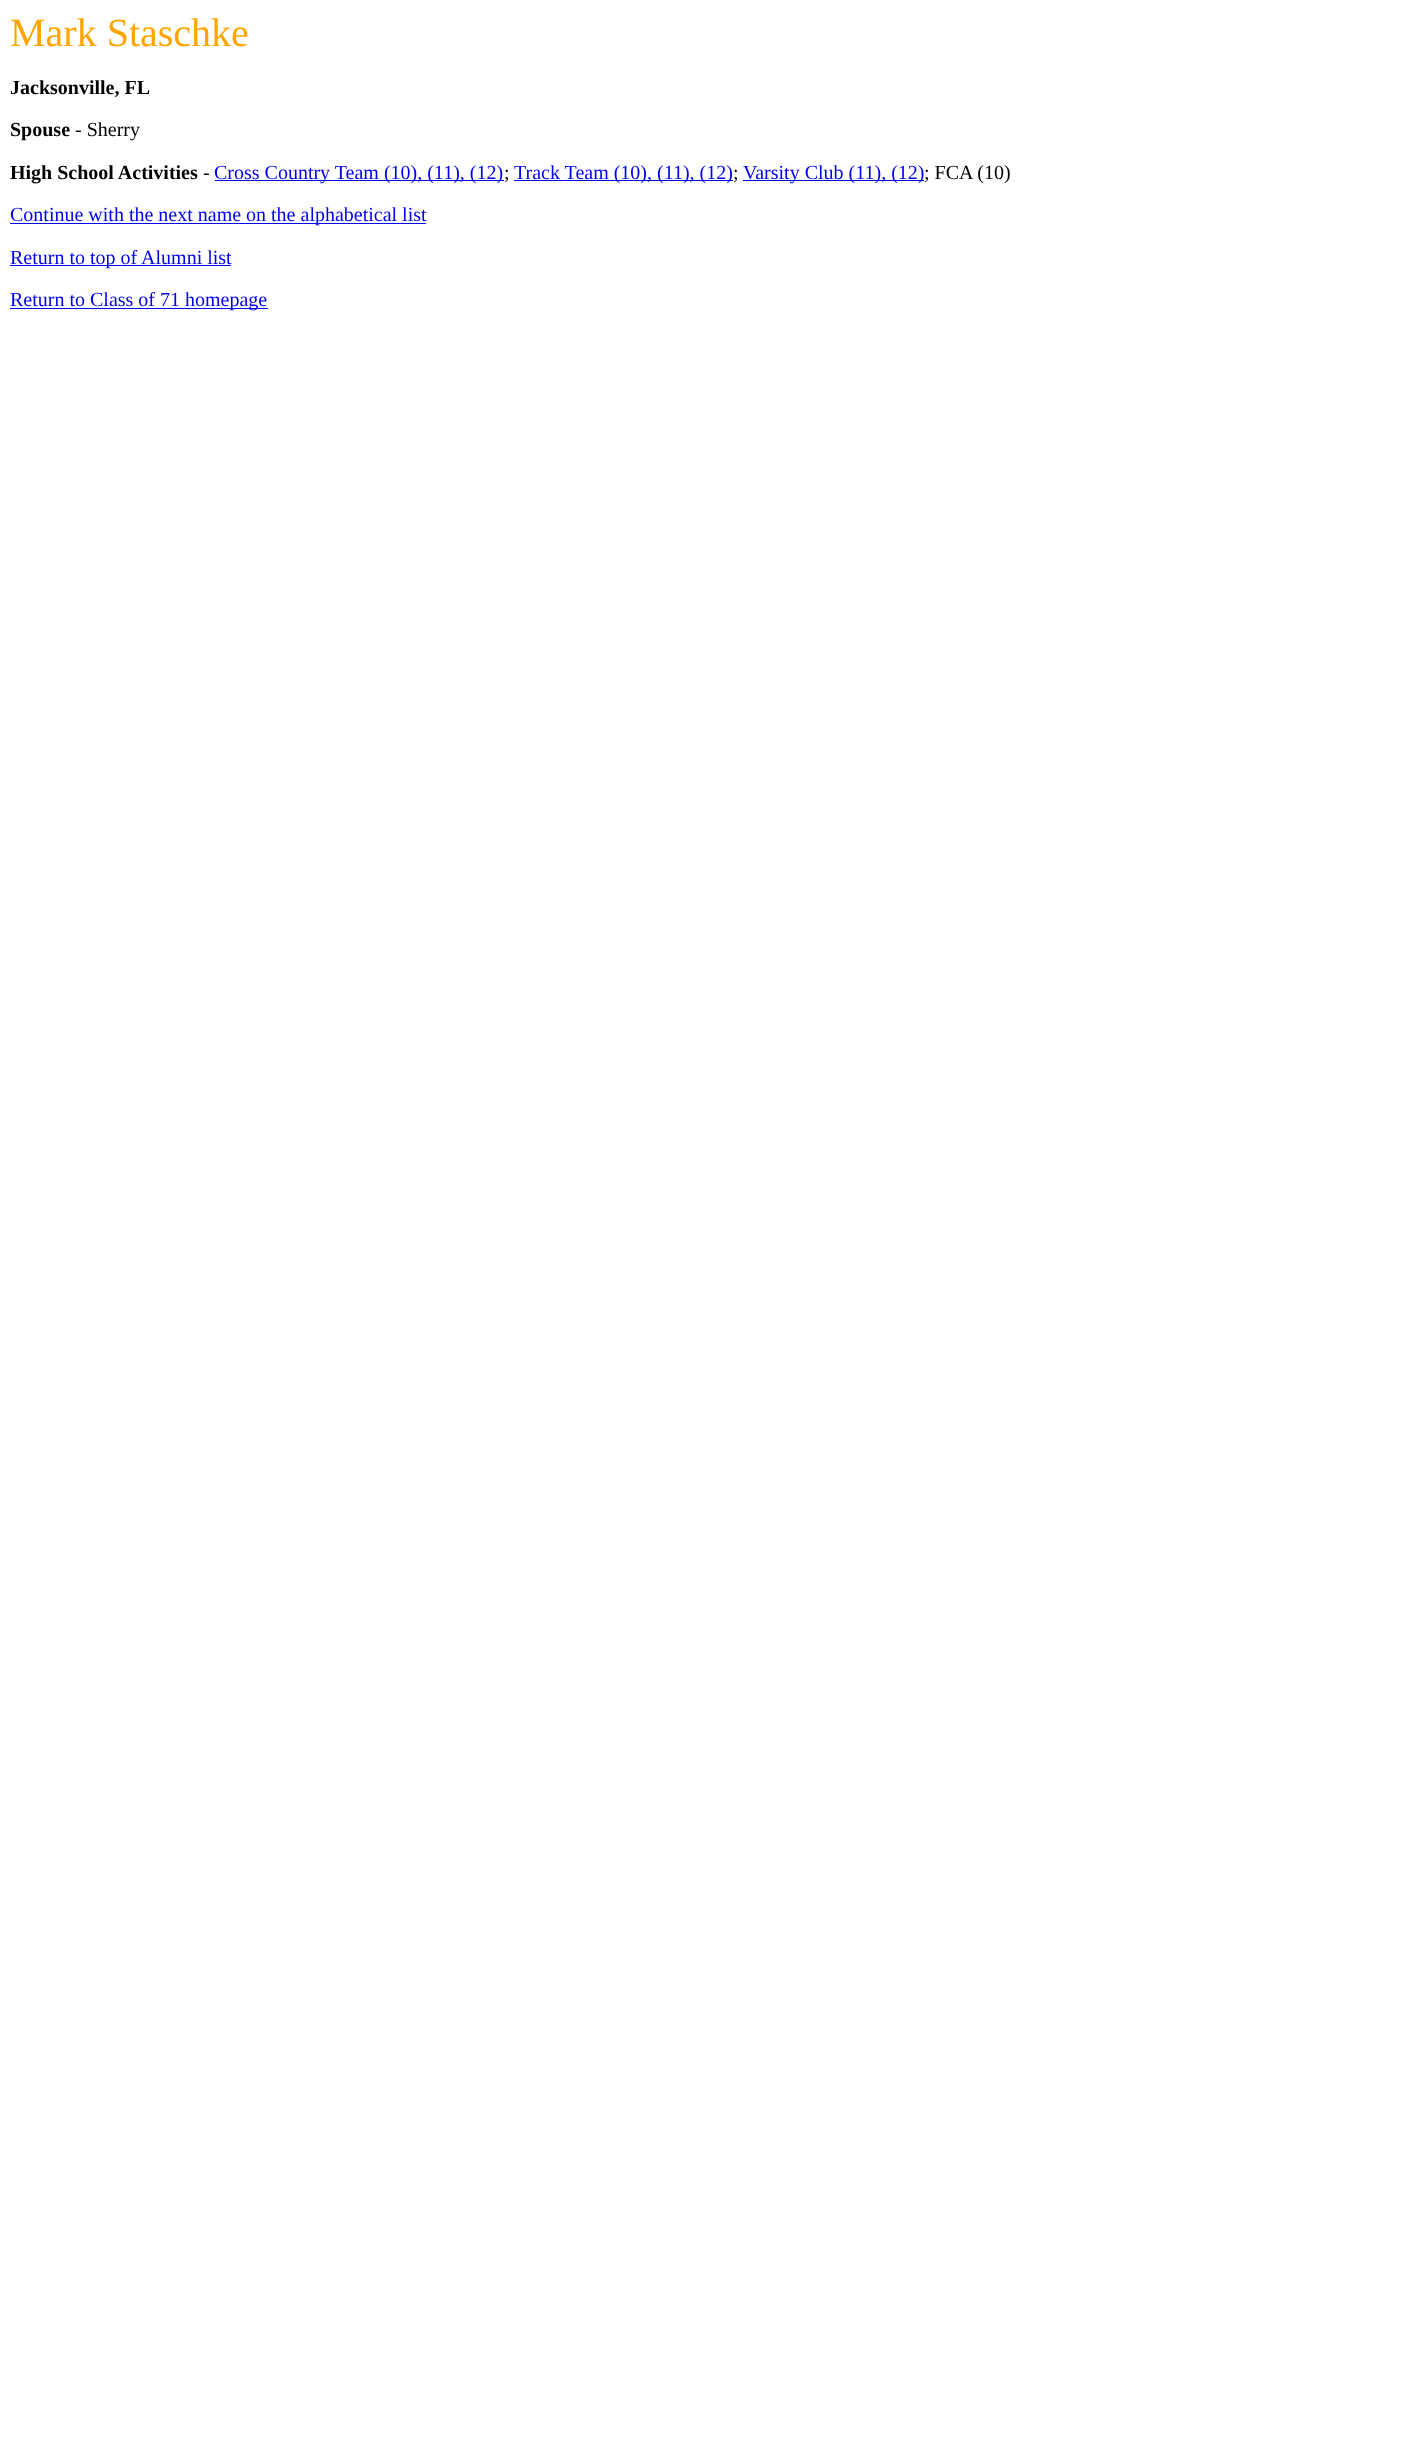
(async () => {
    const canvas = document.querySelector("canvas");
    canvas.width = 1414;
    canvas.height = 2455;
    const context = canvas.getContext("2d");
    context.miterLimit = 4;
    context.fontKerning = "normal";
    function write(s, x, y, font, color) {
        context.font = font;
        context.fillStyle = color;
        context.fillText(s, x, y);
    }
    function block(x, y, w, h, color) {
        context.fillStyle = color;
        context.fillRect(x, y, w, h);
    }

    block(0, 0, 1414, 2455, "rgb(255, 255, 255)");
    write("Mark Staschke", 10, 46, "40px Liberation Serif", "rgb(255, 165, 0)");
    write("Jacksonville, FL", 10, 94, "bold 20px Liberation Serif", "rgb(0, 0, 0)");
    write("Spouse", 10, 136, "bold 20px Liberation Serif", "rgb(0, 0, 0)");
    write("- Sherry", 75, 136, "20px Liberation Serif", "rgb(0, 0, 0)");
    write("High School Activities", 10, 179, "bold 20px Liberation Serif", "rgb(0, 0, 0)");
    write("-", 203, 179, "20px Liberation Serif", "rgb(0, 0, 0)");
    block(215, 180, 289, 1, "rgb(0, 0, 238)");
    write("Cross Country Team (10), (11), (12)", 214, 179, "20px Liberation Serif", "rgb(0, 0, 238)");
    write(";", 504, 179, "20px Liberation Serif", "rgb(0, 0, 0)");
    block(514, 180, 219, 1, "rgb(0, 0, 238)");
    write("Track Team (10), (11), (12)", 514, 179, "20px Liberation Serif", "rgb(0, 0, 238)");
    write(";", 733, 179, "20px Liberation Serif", "rgb(0, 0, 0)");
    block(743, 180, 181, 1, "rgb(0, 0, 238)");
    write("Varsity Club (11), (12)", 743, 179, "20px Liberation Serif", "rgb(0, 0, 238)");
    write("; FCA (10)", 924, 179, "20px Liberation Serif", "rgb(0, 0, 0)");
    block(10, 223, 416, 1, "rgb(0, 0, 238)");
    write("Continue with the next name on the alphabetical list", 10, 221, "20px Liberation Serif", "rgb(0, 0, 238)");
    block(10, 265, 221, 1, "rgb(0, 0, 238)");
    write("Return to top of Alumni list", 10, 264, "20px Liberation Serif", "rgb(0, 0, 238)");
    block(10, 308, 258, 1, "rgb(0, 0, 238)");
    write("Return to Class of 71 homepage", 10, 306, "20px Liberation Serif", "rgb(0, 0, 238)");
})();
